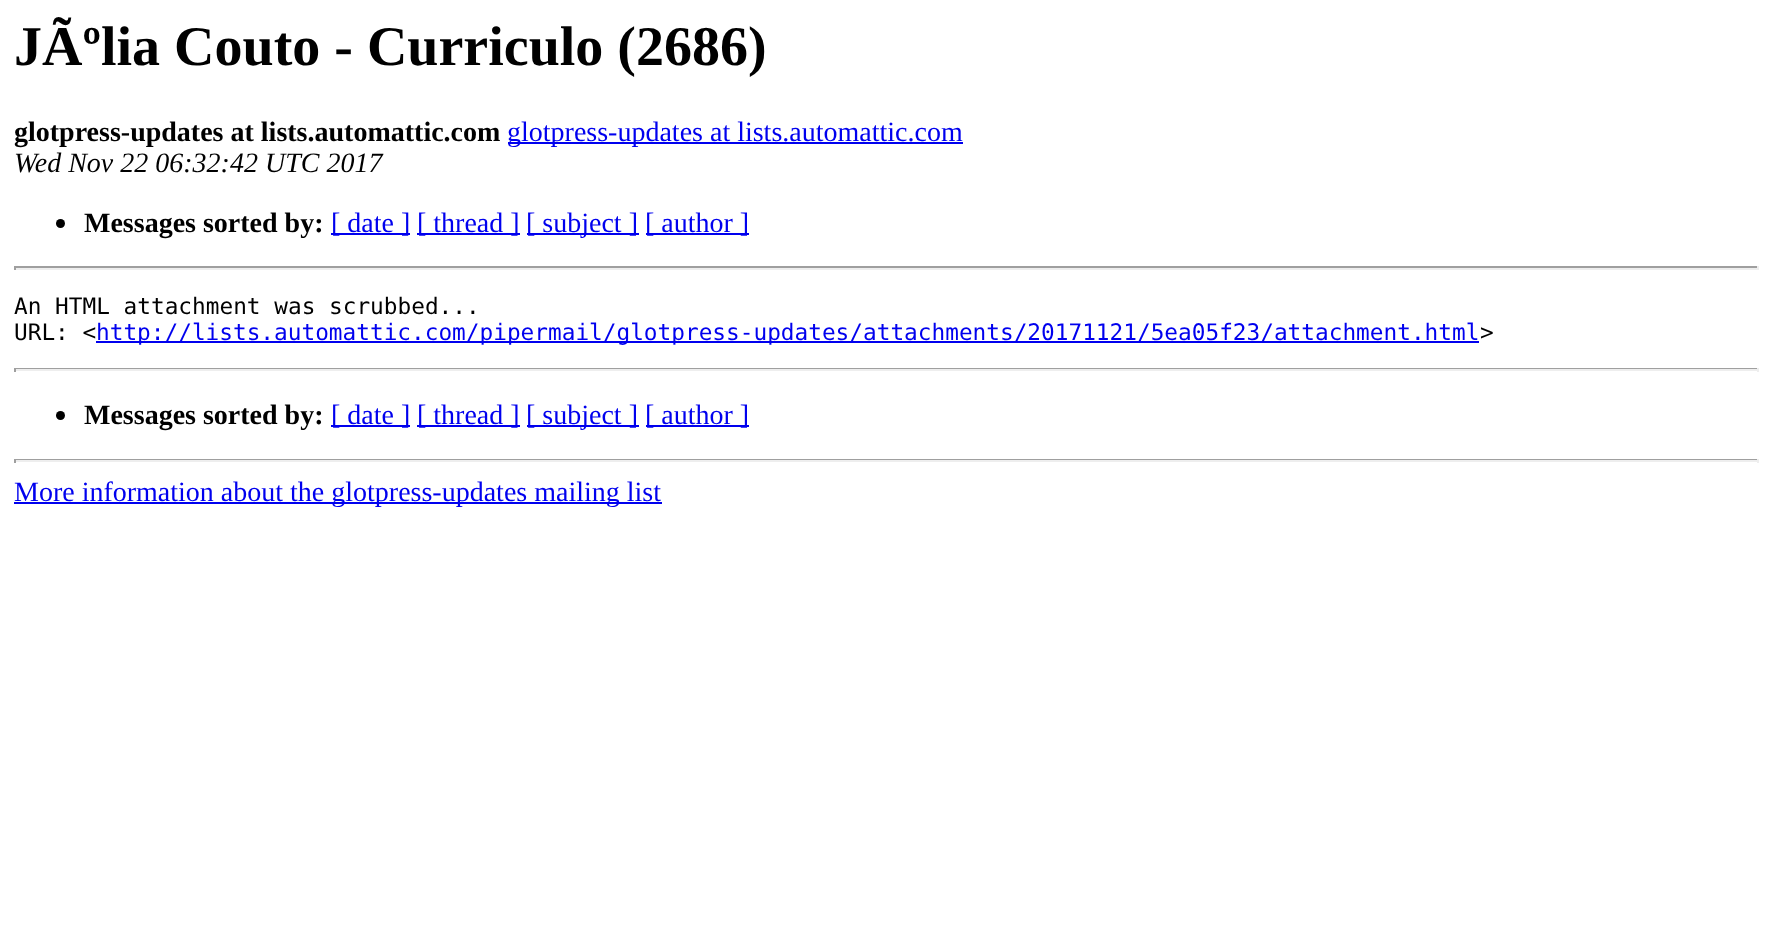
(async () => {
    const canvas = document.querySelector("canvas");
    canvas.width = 1772;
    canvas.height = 933;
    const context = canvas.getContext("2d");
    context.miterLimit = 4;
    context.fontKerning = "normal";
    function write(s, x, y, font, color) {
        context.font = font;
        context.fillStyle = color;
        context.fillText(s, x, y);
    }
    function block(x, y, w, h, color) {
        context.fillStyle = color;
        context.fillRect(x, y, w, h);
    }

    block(0, 0, 1772, 933, "rgb(255, 255, 255)");
    write("JÃºlia Couto - Curriculo (2686)", 14, 65, "bold 56px Liberation Serif", "rgb(0, 0, 0)");
    write("glotpress-updates at lists.automattic.com", 14, 141, "bold 28px Liberation Serif", "rgb(0, 0, 0)");
    block(508, 142, 455, 2, "rgb(0, 0, 238)");
    write("glotpress-updates at lists.automattic.com", 507, 141, "28px Liberation Serif", "rgb(0, 0, 238)");
    write("Wed Nov 22 06:32:42 UTC 2017", 14, 172, "italic 28px Liberation Serif", "rgb(0, 0, 0)");
    context.beginPath();
    context.arc(60.5, 223.5, 4.5, 0, Math.PI * 2);
    context.fill();
    write("Messages sorted by:", 84, 232, "bold 28px Liberation Serif", "rgb(0, 0, 0)");
    block(331, 233, 79, 2, "rgb(0, 0, 238)");
    write("[ date ]", 331, 232, "28px Liberation Serif", "rgb(0, 0, 238)");
    block(417, 233, 103, 2, "rgb(0, 0, 238)");
    write("[ thread ]", 417, 232, "28px Liberation Serif", "rgb(0, 0, 238)");
    block(527, 233, 112, 2, "rgb(0, 0, 238)");
    write("[ subject ]", 526, 232, "28px Liberation Serif", "rgb(0, 0, 238)");
    block(646, 233, 103, 2, "rgb(0, 0, 238)");
    write("[ author ]", 645, 232, "28px Liberation Serif", "rgb(0, 0, 238)");
    block(14, 266, 1745, 2, "rgb(159, 159, 159)");
    block(1757, 266, 2, 4, "rgb(238, 238, 238)");
    block(14, 268, 1745, 2, "rgb(238, 238, 238)");
    block(14, 266, 2, 4, "rgb(159, 159, 159)");
    write("An HTML attachment was scrubbed...", 14, 314, "22.75px DejaVu Sans Mono", "rgb(0, 0, 0)");
    write("URL: <", 14, 340, "22.75px DejaVu Sans Mono", "rgb(0, 0, 0)");
    block(96, 341, 1383, 2, "rgb(0, 0, 238)");
    write("http://lists.automattic.com/pipermail/glotpress-updates/attachments/20171121/5ea05f23/attachment.html", 96, 340, "22.75px DejaVu Sans Mono", "rgb(0, 0, 238)");
    write(">", 1480, 340, "22.75px DejaVu Sans Mono", "rgb(0, 0, 0)");
    block(14, 368, 1745, 1, "rgb(159, 159, 159)");
    block(1757, 368, 2, 4, "rgb(238, 238, 238)");
    block(14, 369, 1745, 2, "rgb(238, 238, 238)");
    block(14, 368, 2, 4, "rgb(159, 159, 159)");
    context.fillStyle = "rgb(0, 0, 0)";
    context.beginPath();
    context.arc(60.5, 415.5, 4.5, 0, Math.PI * 2);
    context.fill();
    write("Messages sorted by:", 84, 424, "bold 28px Liberation Serif", "rgb(0, 0, 0)");
    block(331, 425, 79, 2, "rgb(0, 0, 238)");
    write("[ date ]", 331, 424, "28px Liberation Serif", "rgb(0, 0, 238)");
    block(417, 425, 103, 2, "rgb(0, 0, 238)");
    write("[ thread ]", 417, 424, "28px Liberation Serif", "rgb(0, 0, 238)");
    block(527, 425, 112, 2, "rgb(0, 0, 238)");
    write("[ subject ]", 526, 424, "28px Liberation Serif", "rgb(0, 0, 238)");
    block(646, 425, 103, 2, "rgb(0, 0, 238)");
    write("[ author ]", 645, 424, "28px Liberation Serif", "rgb(0, 0, 238)");
    block(14, 459, 1745, 1, "rgb(159, 159, 159)");
    block(1757, 459, 2, 4, "rgb(238, 238, 238)");
    block(14, 460, 1745, 2, "rgb(238, 238, 238)");
    block(14, 459, 2, 4, "rgb(159, 159, 159)");
    block(14, 502, 648, 2, "rgb(0, 0, 238)");
    write("More information about the glotpress-updates mailing list", 14, 501, "28px Liberation Serif", "rgb(0, 0, 238)");
})();
